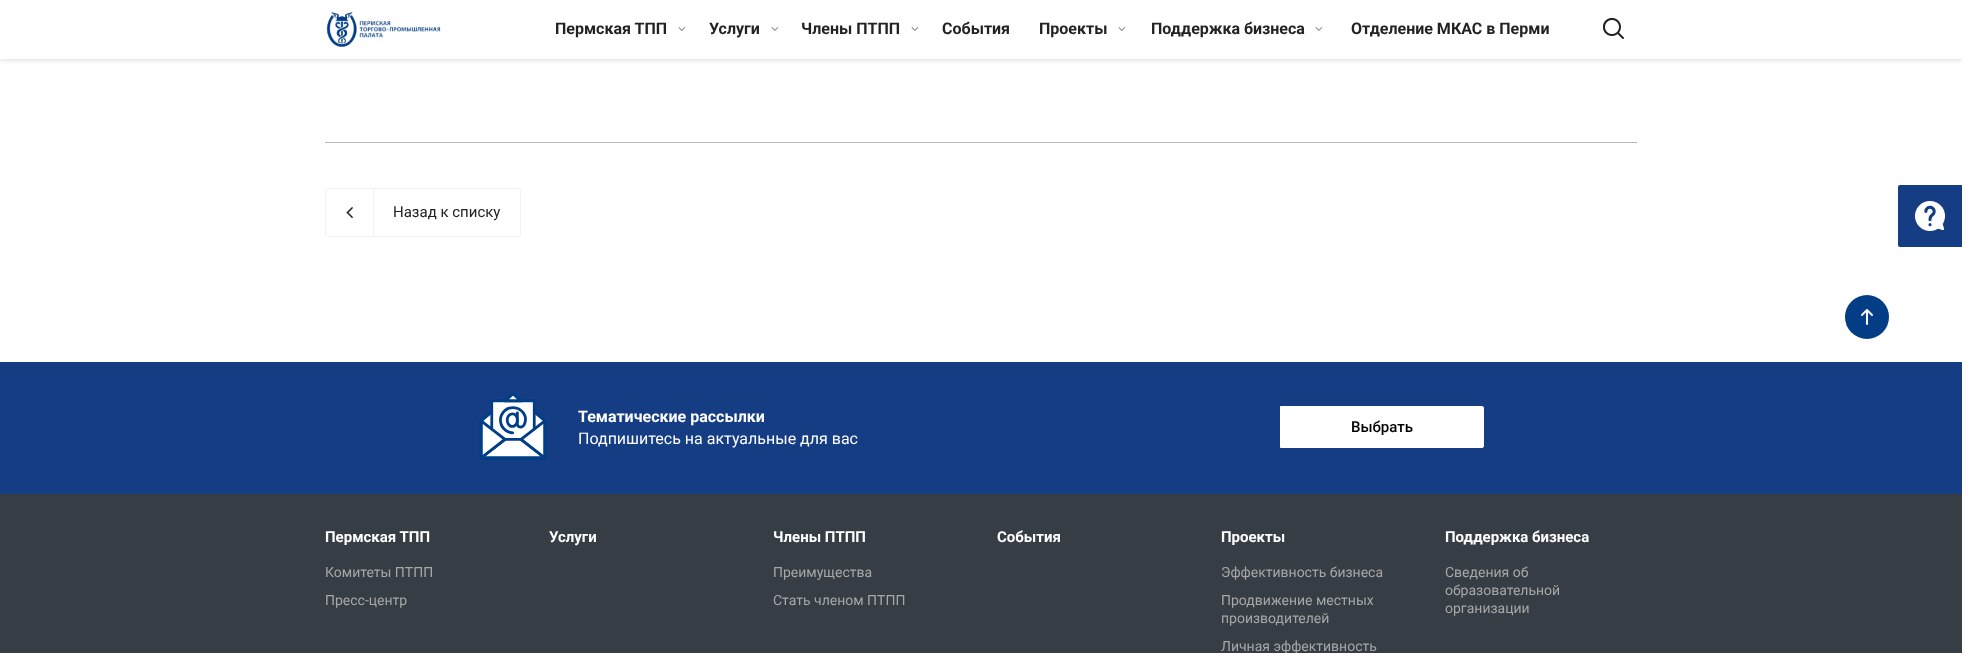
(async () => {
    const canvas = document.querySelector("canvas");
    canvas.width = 1962;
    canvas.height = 653;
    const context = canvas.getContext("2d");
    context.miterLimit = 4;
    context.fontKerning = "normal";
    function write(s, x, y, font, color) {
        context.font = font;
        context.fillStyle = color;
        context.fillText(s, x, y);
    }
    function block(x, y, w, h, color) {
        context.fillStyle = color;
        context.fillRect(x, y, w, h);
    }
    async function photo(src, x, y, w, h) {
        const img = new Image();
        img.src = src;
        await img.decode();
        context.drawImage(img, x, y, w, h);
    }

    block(0, 0, 1962, 653, "rgb(255, 255, 255)");
    context.fillStyle = "rgba(0, 0, 0, 0.14)";
    context.filter = "blur(2.5px)";
    context.beginPath();
    context.rect(0, 1, 1962, 59);
    context.fill();
    context.filter = "none";
    block(0, 0, 1962, 59, "rgb(255, 255, 255)");
    await photo("media/1.png", 326, 11, 115, 36);
    write("Пермская ТПП", 555, 34, "bold 16px Roboto", "rgb(34, 34, 34)");
    await photo("media/2.png", 678, 27, 8, 4);
    write("Услуги", 709, 34, "bold 16px Roboto", "rgb(34, 34, 34)");
    await photo("media/2.png", 771, 27, 8, 4);
    write("Члены ПТПП", 801, 34, "bold 16px Roboto", "rgb(34, 34, 34)");
    await photo("media/2.png", 911, 27, 8, 4);
    write("События", 942, 34, "bold 16px Roboto", "rgb(34, 34, 34)");
    write("Проекты", 1039, 34, "bold 16px Roboto", "rgb(34, 34, 34)");
    await photo("media/2.png", 1118, 27, 8, 4);
    write("Поддержка бизнеса", 1151, 34, "bold 16px Roboto", "rgb(34, 34, 34)");
    await photo("media/2.png", 1315, 27, 8, 4);
    write("Отделение МКАС в Перми", 1351, 34, "bold 16px Roboto", "rgb(34, 34, 34)");
    await photo("media/3.png", 1603, 18, 21, 21);
    block(325, 142, 1312, 1, "rgb(183, 183, 183)");
    context.beginPath();
    context.roundRect(325.5, 188.5, 195, 48, 2.5);
    context.strokeStyle = "rgb(242, 242, 242)";
    context.stroke();
    await photo("media/4.png", 346, 207, 7, 12);
    block(373, 189, 1, 47, "rgb(242, 242, 242)");
    write("Назад к списку", 393, 217, "15px Roboto", "rgb(34, 34, 34)");
    await photo("media/5.png", 1898, 185, 64, 62);
    context.fillStyle = "rgb(3, 61, 134)";
    context.beginPath();
    context.arc(1867, 317, 22, 0, Math.PI * 2);
    context.fill();
    await photo("media/6.png", 1861, 309, 12, 16);
    block(0, 494, 1962, 159, "rgb(55, 61, 68)");
    block(0, 362, 1962, 132, "rgb(21, 61, 131)");
    await photo("media/7.png", 479, 392, 68, 68);
    write("Тематические рассылки", 578, 422, "bold 16px Roboto", "rgb(255, 255, 255)");
    write("Подпишитесь на актуальные для вас", 578, 444, "16px Roboto", "rgb(255, 255, 255)");
    context.beginPath();
    context.roundRect(1280.5, 406.5, 203, 41, [0, 1.5, 1.5, 0]);
    context.fill();
    context.strokeStyle = "rgb(255, 255, 255)";
    context.stroke();
    write("Выбрать", 1351, 432, "500 15px Roboto", "rgb(0, 0, 0)");
    write("Пермская ТПП", 325, 542, "bold 15px Roboto", "rgb(255, 255, 255)");
    write("Комитеты ПТПП", 325, 577, "14px Roboto", "rgb(167, 167, 167)");
    write("Пресс-центр", 325, 605, "14px Roboto", "rgb(167, 167, 167)");
    write("Услуги", 549, 542, "bold 15px Roboto", "rgb(255, 255, 255)");
    write("Члены ПТПП", 773, 542, "bold 15px Roboto", "rgb(255, 255, 255)");
    write("Преимущества", 773, 577, "14px Roboto", "rgb(167, 167, 167)");
    write("Стать членом ПТПП", 773, 605, "14px Roboto", "rgb(167, 167, 167)");
    write("События", 997, 542, "bold 15px Roboto", "rgb(255, 255, 255)");
    write("Проекты", 1221, 542, "bold 15px Roboto", "rgb(255, 255, 255)");
    write("Эффективность бизнеса", 1221, 577, "14px Roboto", "rgb(167, 167, 167)");
    write("Продвижение местных", 1221, 605, "14px Roboto", "rgb(167, 167, 167)");
    write("производителей", 1221, 623, "14px Roboto", "rgb(167, 167, 167)");
    write("Личная эффективность", 1221, 651, "14px Roboto", "rgb(167, 167, 167)");
    write("Поддержка бизнеса", 1445, 542, "bold 15px Roboto", "rgb(255, 255, 255)");
    write("Сведения об", 1445, 577, "14px Roboto", "rgb(167, 167, 167)");
    write("образовательной", 1445, 595, "14px Roboto", "rgb(167, 167, 167)");
    write("организации", 1445, 613, "14px Roboto", "rgb(167, 167, 167)");
})();
